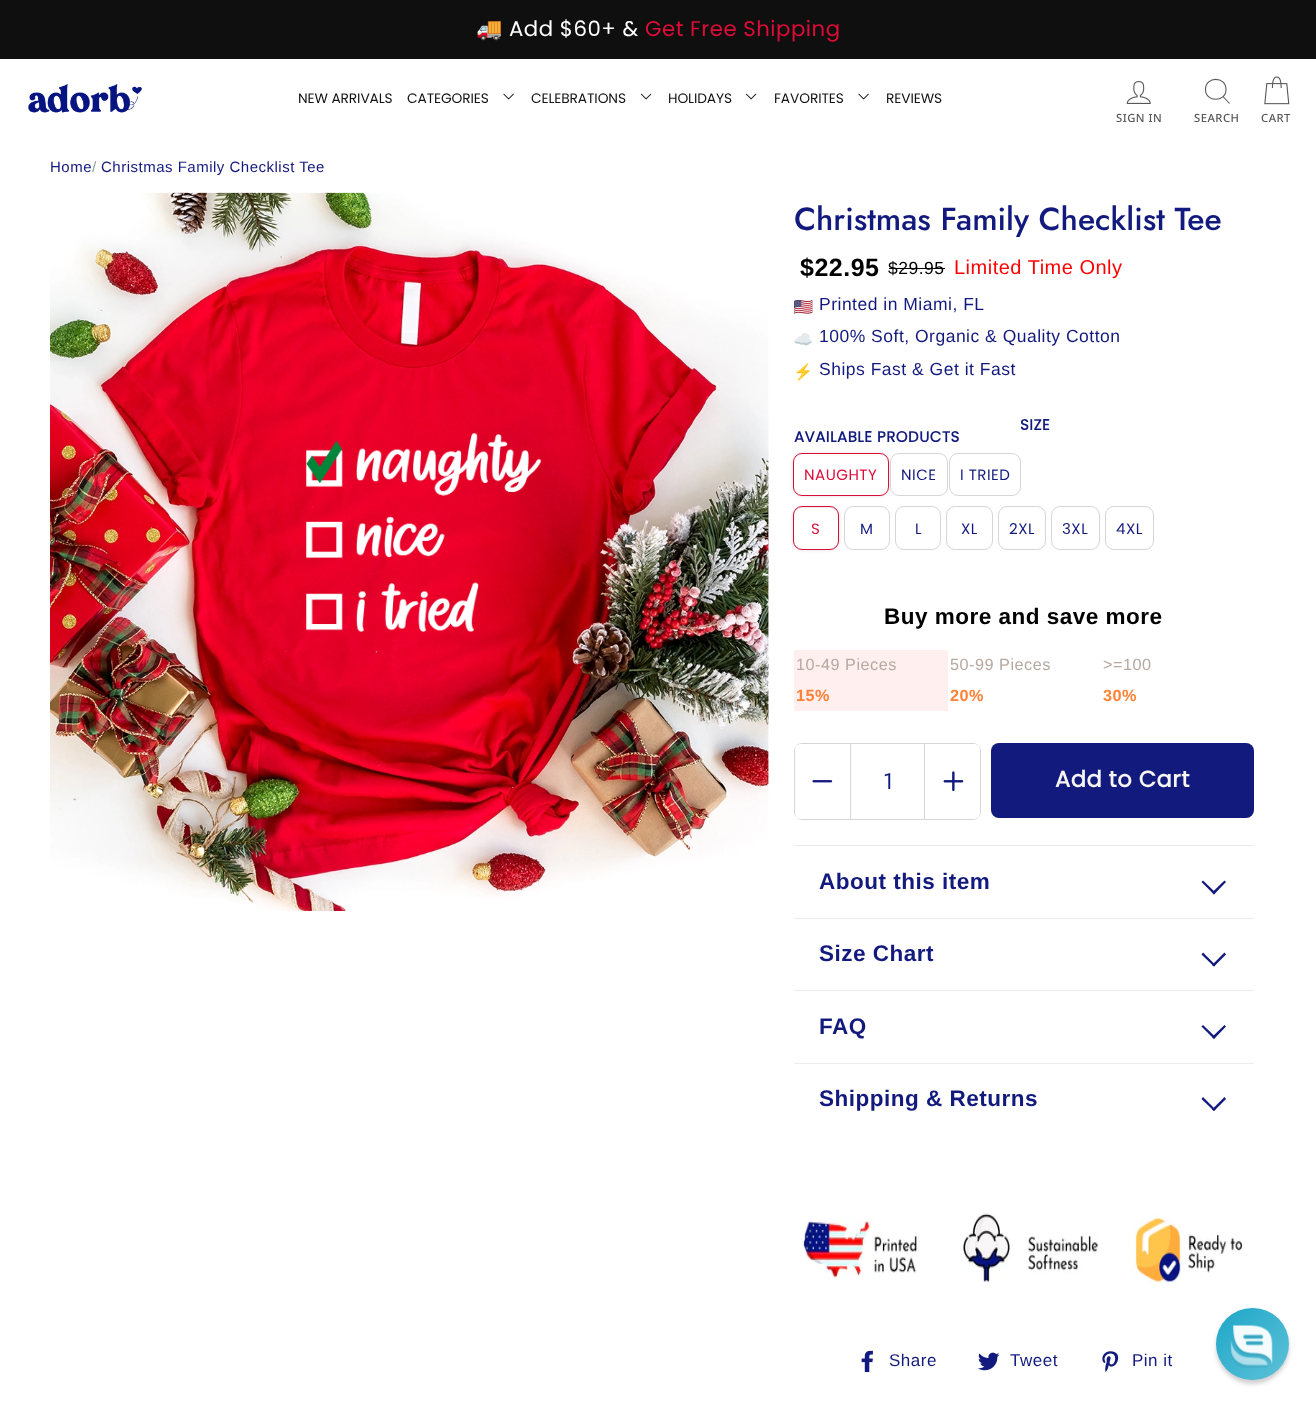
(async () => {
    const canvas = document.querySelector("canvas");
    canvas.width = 1316;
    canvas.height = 1407;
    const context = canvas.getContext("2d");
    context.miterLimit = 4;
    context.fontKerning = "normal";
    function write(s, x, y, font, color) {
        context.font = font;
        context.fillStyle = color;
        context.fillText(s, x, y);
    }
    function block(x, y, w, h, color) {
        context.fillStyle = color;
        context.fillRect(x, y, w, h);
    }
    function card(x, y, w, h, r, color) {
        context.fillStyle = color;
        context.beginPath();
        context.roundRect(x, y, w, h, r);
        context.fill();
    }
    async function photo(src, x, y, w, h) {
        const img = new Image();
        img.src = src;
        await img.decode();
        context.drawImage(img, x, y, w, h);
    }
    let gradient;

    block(0, 0, 1316, 1407, "rgb(255, 255, 255)");
    block(0, 0, 1316, 59, "rgb(15, 15, 15)");
    context.letterSpacing = "0.5px";
    write("🚚", 476, 36, "21.25px Noto Color Emoji", "rgb(255, 255, 255)");
    write("Add $60+ &", 509, 36, "21.25px Poppins", "rgb(255, 255, 255)");
    write("Get Free Shipping", 645, 36, "21.25px Poppins", "rgb(222, 13, 55)");
    context.fillStyle = "rgba(0, 0, 0, 0.2)";
    context.filter = "blur(0.5px)";
    context.beginPath();
    context.rect(0, 59, 1316, 79);
    context.fill();
    context.filter = "none";
    block(0, 59, 1316, 79, "rgb(255, 255, 255)");
    await photo("media/1.png", 28, 84, 114, 29);
    context.letterSpacing = "-0.1px";
    write("NEW ARRIVALS", 298, 103, "13.75px Poppins", "rgb(18, 18, 18)");
    write("CATEGORIES", 407, 103, "13.75px Poppins", "rgb(18, 18, 18)");
    await photo("media/2.png", 503, 93, 11, 7);
    write("CELEBRATIONS", 531, 103, "13.75px Poppins", "rgb(18, 18, 18)");
    await photo("media/3.png", 640, 93, 12, 7);
    write("HOLIDAYS", 668, 103, "13.75px Poppins", "rgb(18, 18, 18)");
    await photo("media/3.png", 745, 93, 12, 7);
    write("FAVORITES", 774, 103, "13.75px Poppins", "rgb(18, 18, 18)");
    await photo("media/2.png", 858, 93, 11, 7);
    write("REVIEWS", 886, 103, "13.75px Poppins", "rgb(18, 18, 18)");
    await photo("media/4.png", 1126, 81, 25, 23);
    context.letterSpacing = "0.5px";
    write("SIGN IN", 1116, 122, "500 11.25px Noto Sans", "rgb(88, 88, 88)");
    context.beginPath();
    context.moveTo(1226, 89.5);
    context.bezierCurveTo(1226, 102.5, 1205.5, 102.5, 1205.5, 89.5);
    context.bezierCurveTo(1205.5, 76, 1226, 76, 1226, 89.5);
    context.closePath();
    context.moveTo(1229.5, 103.5);
    context.lineTo(1223, 96.5);
    context.strokeStyle = "rgb(88, 88, 88)";
    context.lineWidth = 1.1;
    context.stroke();
    write("SEARCH", 1194, 122, "500 11.25px Noto Sans", "rgb(88, 88, 88)");
    await photo("media/5.png", 1264, 76, 26, 29);
    write("CART", 1261, 122, "500 11.25px Noto Sans", "rgb(88, 88, 88)");
    write("Home", 50, 172, "15px Liberation Sans", "rgb(19, 26, 126)");
    write("/", 92, 172, "15px Liberation Sans", "rgb(132, 161, 161)");
    write("Christmas Family Checklist Tee", 101, 172, "15px Liberation Sans", "rgb(19, 26, 126)");
    await photo("media/6.png", 50, 192, 719, 719);
    await photo("media/7.png", 306, 432, 236, 200);
    context.letterSpacing = "0px";
    write("Christmas Family Checklist Tee", 794, 230, "500 31.9px Jost", "rgb(19, 26, 126)");
    context.letterSpacing = "0.5px";
    write("$22.95", 800, 276, "bold 25px Liberation Sans", "rgb(0, 0, 0)");
    write("$29.95", 888, 274, "17.5px Liberation Sans", "rgb(0, 0, 0)");
    block(889, 268, 56, 1, "rgb(0, 0, 0)");
    write("Limited Time Only", 954, 274, "20px Liberation Sans", "rgb(255, 0, 0)");
    await photo("media/8.png", 794, 300, 19, 14);
    write("Printed in Miami, FL", 819, 310, "17.5px Liberation Sans", "rgb(19, 26, 126)");
    await photo("media/9.png", 794, 333, 18, 13);
    write("100% Soft, Organic & Quality Cotton", 819, 342, "17.5px Liberation Sans", "rgb(19, 26, 126)");
    await photo("media/10.png", 796, 363, 14, 18);
    write("Ships Fast & Get it Fast", 819, 375, "17.5px Liberation Sans", "rgb(19, 26, 126)");
    write("SIZE", 1020, 430, "bold 15px Poppins", "rgb(19, 26, 126)");
    context.fillStyle = "rgba(0, 0, 0, 0.2)";
    context.filter = "blur(2px)";
    context.beginPath();
    context.roundRect(794, 508, 44, 41, 8);
    context.fill();
    context.filter = "none";
    card(794, 508, 44, 41, 8, "rgb(255, 255, 255)");
    context.beginPath();
    context.roundRect(793.5, 506.5, 45, 43, 8.5);
    context.strokeStyle = "rgb(222, 13, 55)";
    context.lineWidth = 1;
    context.stroke();
    write("S", 811, 534, "15px Poppins", "rgb(222, 13, 55)");
    context.beginPath();
    context.roundRect(844.5, 506.5, 45, 43, 8.5);
    context.strokeStyle = "rgb(214, 214, 214)";
    context.stroke();
    write("M", 860, 534, "15px Poppins", "rgb(19, 26, 126)");
    context.beginPath();
    context.roundRect(895.5, 506.5, 45, 43, 8.5);
    context.stroke();
    write("L", 915, 534, "15px Poppins", "rgb(19, 26, 126)");
    context.beginPath();
    context.roundRect(946.5, 506.5, 46, 43, 8.5);
    context.stroke();
    write("XL", 961, 534, "15px Poppins", "rgb(19, 26, 126)");
    context.beginPath();
    context.roundRect(998.5, 506.5, 47, 43, 8.5);
    context.stroke();
    write("2XL", 1009, 534, "15px Poppins", "rgb(19, 26, 126)");
    context.beginPath();
    context.roundRect(1051.5, 506.5, 48, 43, 8.5);
    context.stroke();
    write("3XL", 1062, 534, "15px Poppins", "rgb(19, 26, 126)");
    context.beginPath();
    context.roundRect(1105.5, 506.5, 48, 43, 8.5);
    context.stroke();
    write("4XL", 1116, 534, "15px Poppins", "rgb(19, 26, 126)");
    write("AVAILABLE PRODUCTS", 794, 442, "bold 15px Poppins", "rgb(19, 26, 126)");
    context.fillStyle = "rgba(0, 0, 0, 0.2)";
    context.filter = "blur(2px)";
    context.beginPath();
    context.roundRect(794, 454, 94, 41, 8);
    context.fill();
    context.filter = "none";
    context.fillStyle = "rgb(255, 255, 255)";
    context.beginPath();
    context.roundRect(793.5, 453.5, 95, 42, 8.5);
    context.fill();
    context.strokeStyle = "rgb(222, 13, 55)";
    context.stroke();
    write("NAUGHTY", 804, 480, "15px Poppins", "rgb(222, 13, 55)");
    context.beginPath();
    context.roundRect(890.5, 453.5, 57, 42, 8.5);
    context.strokeStyle = "rgb(214, 214, 214)";
    context.stroke();
    write("NICE", 901, 480, "15px Poppins", "rgb(19, 26, 126)");
    context.beginPath();
    context.roundRect(949.5, 453.5, 71, 42, 8.5);
    context.stroke();
    write("I TRIED", 960, 480, "15px Poppins", "rgb(19, 26, 126)");
    write("Buy more and save more", 884, 624, "bold 22.5px Liberation Sans", "rgb(0, 0, 0)");
    block(794, 650, 154, 61, "rgb(255, 239, 239)");
    write("10-49 Pieces", 796, 670, "16.25px Liberation Sans", "rgb(182, 169, 161)");
    write("15%", 796, 701, "bold 16.25px Liberation Sans", "rgb(255, 130, 54)");
    write("50-99 Pieces", 950, 670, "16.25px Liberation Sans", "rgb(182, 169, 161)");
    write("20%", 950, 701, "bold 16.25px Liberation Sans", "rgb(255, 130, 54)");
    write(">=100", 1103, 670, "16.25px Liberation Sans", "rgb(182, 169, 161)");
    write("30%", 1103, 701, "bold 16.25px Liberation Sans", "rgb(255, 130, 54)");
    context.beginPath();
    context.roundRect(794.5, 743.5, 186, 76, 7.5);
    context.stroke();
    context.fillStyle = "rgb(255, 255, 255)";
    context.beginPath();
    context.roundRect(795, 744, 55, 75, [6, 0, 0, 6]);
    context.fill();
    await photo("media/11.png", 812, 780, 21, 3);
    block(924, 744, 1, 75, "rgb(214, 214, 214)");
    block(850, 744, 1, 75, "rgb(214, 214, 214)");
    context.letterSpacing = "1px";
    write("1", 883, 789, "22.5px Jost", "rgb(19, 26, 126)");
    context.fillStyle = "rgb(255, 255, 255)";
    context.beginPath();
    context.roundRect(925, 744, 55, 75, [0, 6, 6, 0]);
    context.fill();
    await photo("media/12.png", 943, 771, 21, 21);
    card(991, 743, 263, 75, 8, "rgb(19, 26, 126)");
    context.letterSpacing = "0.5px";
    write("Add to Cart", 1055, 787, "bold 22.5px Poppins", "rgb(246, 245, 242)");
    block(794, 845, 460, 1, "rgb(234, 236, 240)");
    write("About this item", 819, 889, "bold 22.5px Liberation Sans", "rgb(19, 26, 126)");
    context.beginPath();
    context.moveTo(1224.5, 880.5);
    context.lineTo(1226, 882);
    context.lineTo(1214, 894.5);
    context.lineTo(1212, 892.5);
    context.closePath();
    context.fill();
    context.beginPath();
    context.moveTo(1203, 880.5);
    context.lineTo(1215.5, 892.5);
    context.lineTo(1214, 894.5);
    context.lineTo(1201.5, 882);
    context.closePath();
    context.fill();
    block(794, 918, 460, 1, "rgb(234, 236, 240)");
    write("Size Chart", 819, 961, "bold 22.5px Liberation Sans", "rgb(19, 26, 126)");
    context.beginPath();
    context.moveTo(1224.5, 952.5);
    context.lineTo(1226, 954.5);
    context.lineTo(1214, 966.5);
    context.lineTo(1212, 965);
    context.closePath();
    context.fill();
    context.beginPath();
    context.moveTo(1203, 952.5);
    context.lineTo(1215.5, 965);
    context.lineTo(1214, 966.5);
    context.lineTo(1201.5, 954.5);
    context.closePath();
    context.fill();
    block(794, 990, 460, 1, "rgb(234, 236, 240)");
    write("FAQ", 819, 1034, "bold 22.5px Liberation Sans", "rgb(19, 26, 126)");
    context.beginPath();
    context.moveTo(1224.5, 1025);
    context.lineTo(1226, 1026.5);
    context.lineTo(1214, 1039);
    context.lineTo(1212, 1037);
    context.closePath();
    context.fill();
    context.beginPath();
    context.moveTo(1203, 1025);
    context.lineTo(1215.5, 1037);
    context.lineTo(1214, 1039);
    context.lineTo(1201.5, 1026.5);
    context.closePath();
    context.fill();
    block(794, 1063, 460, 1, "rgb(234, 236, 240)");
    write("Shipping & Returns", 819, 1106, "bold 22.5px Liberation Sans", "rgb(19, 26, 126)");
    context.beginPath();
    context.moveTo(1224.5, 1097);
    context.lineTo(1226, 1099);
    context.lineTo(1214, 1111);
    context.lineTo(1212, 1109.5);
    context.closePath();
    context.fill();
    context.beginPath();
    context.moveTo(1203, 1097);
    context.lineTo(1215.5, 1109.5);
    context.lineTo(1214, 1111);
    context.lineTo(1201.5, 1099);
    context.closePath();
    context.fill();
    await photo("media/13.png", 803, 1213, 440, 76);
    await photo("media/14.png", 861, 1350, 12, 23);
    write("Share", 889, 1366, "17px Liberation Sans", "rgb(19, 26, 126)");
    await photo("media/15.png", 978, 1352, 22, 19);
    write("Tweet", 1010, 1366, "17px Liberation Sans", "rgb(19, 26, 126)");
    await photo("media/16.png", 1102, 1351, 17, 21);
    write("Pin it", 1132, 1366, "17px Liberation Sans", "rgb(19, 26, 126)");
    context.fillStyle = "rgba(13, 13, 13, 0.2)";
    context.filter = "blur(2px)";
    context.beginPath();
    context.roundRect(1216, 1311, 73, 73, 36.5);
    context.fill();
    context.filter = "none";
    gradient = context.createLinearGradient(1216, 1308, 1289, 1380);
    gradient.addColorStop(0, "rgb(28, 167, 200)");
    gradient.addColorStop(1, "rgb(96, 193, 216)");
    context.fillStyle = gradient;
    context.beginPath();
    context.roundRect(1216, 1308, 73, 72, 36);
    context.fill();
    await photo("media/17.png", 1230, 1325, 43, 43);
})();
